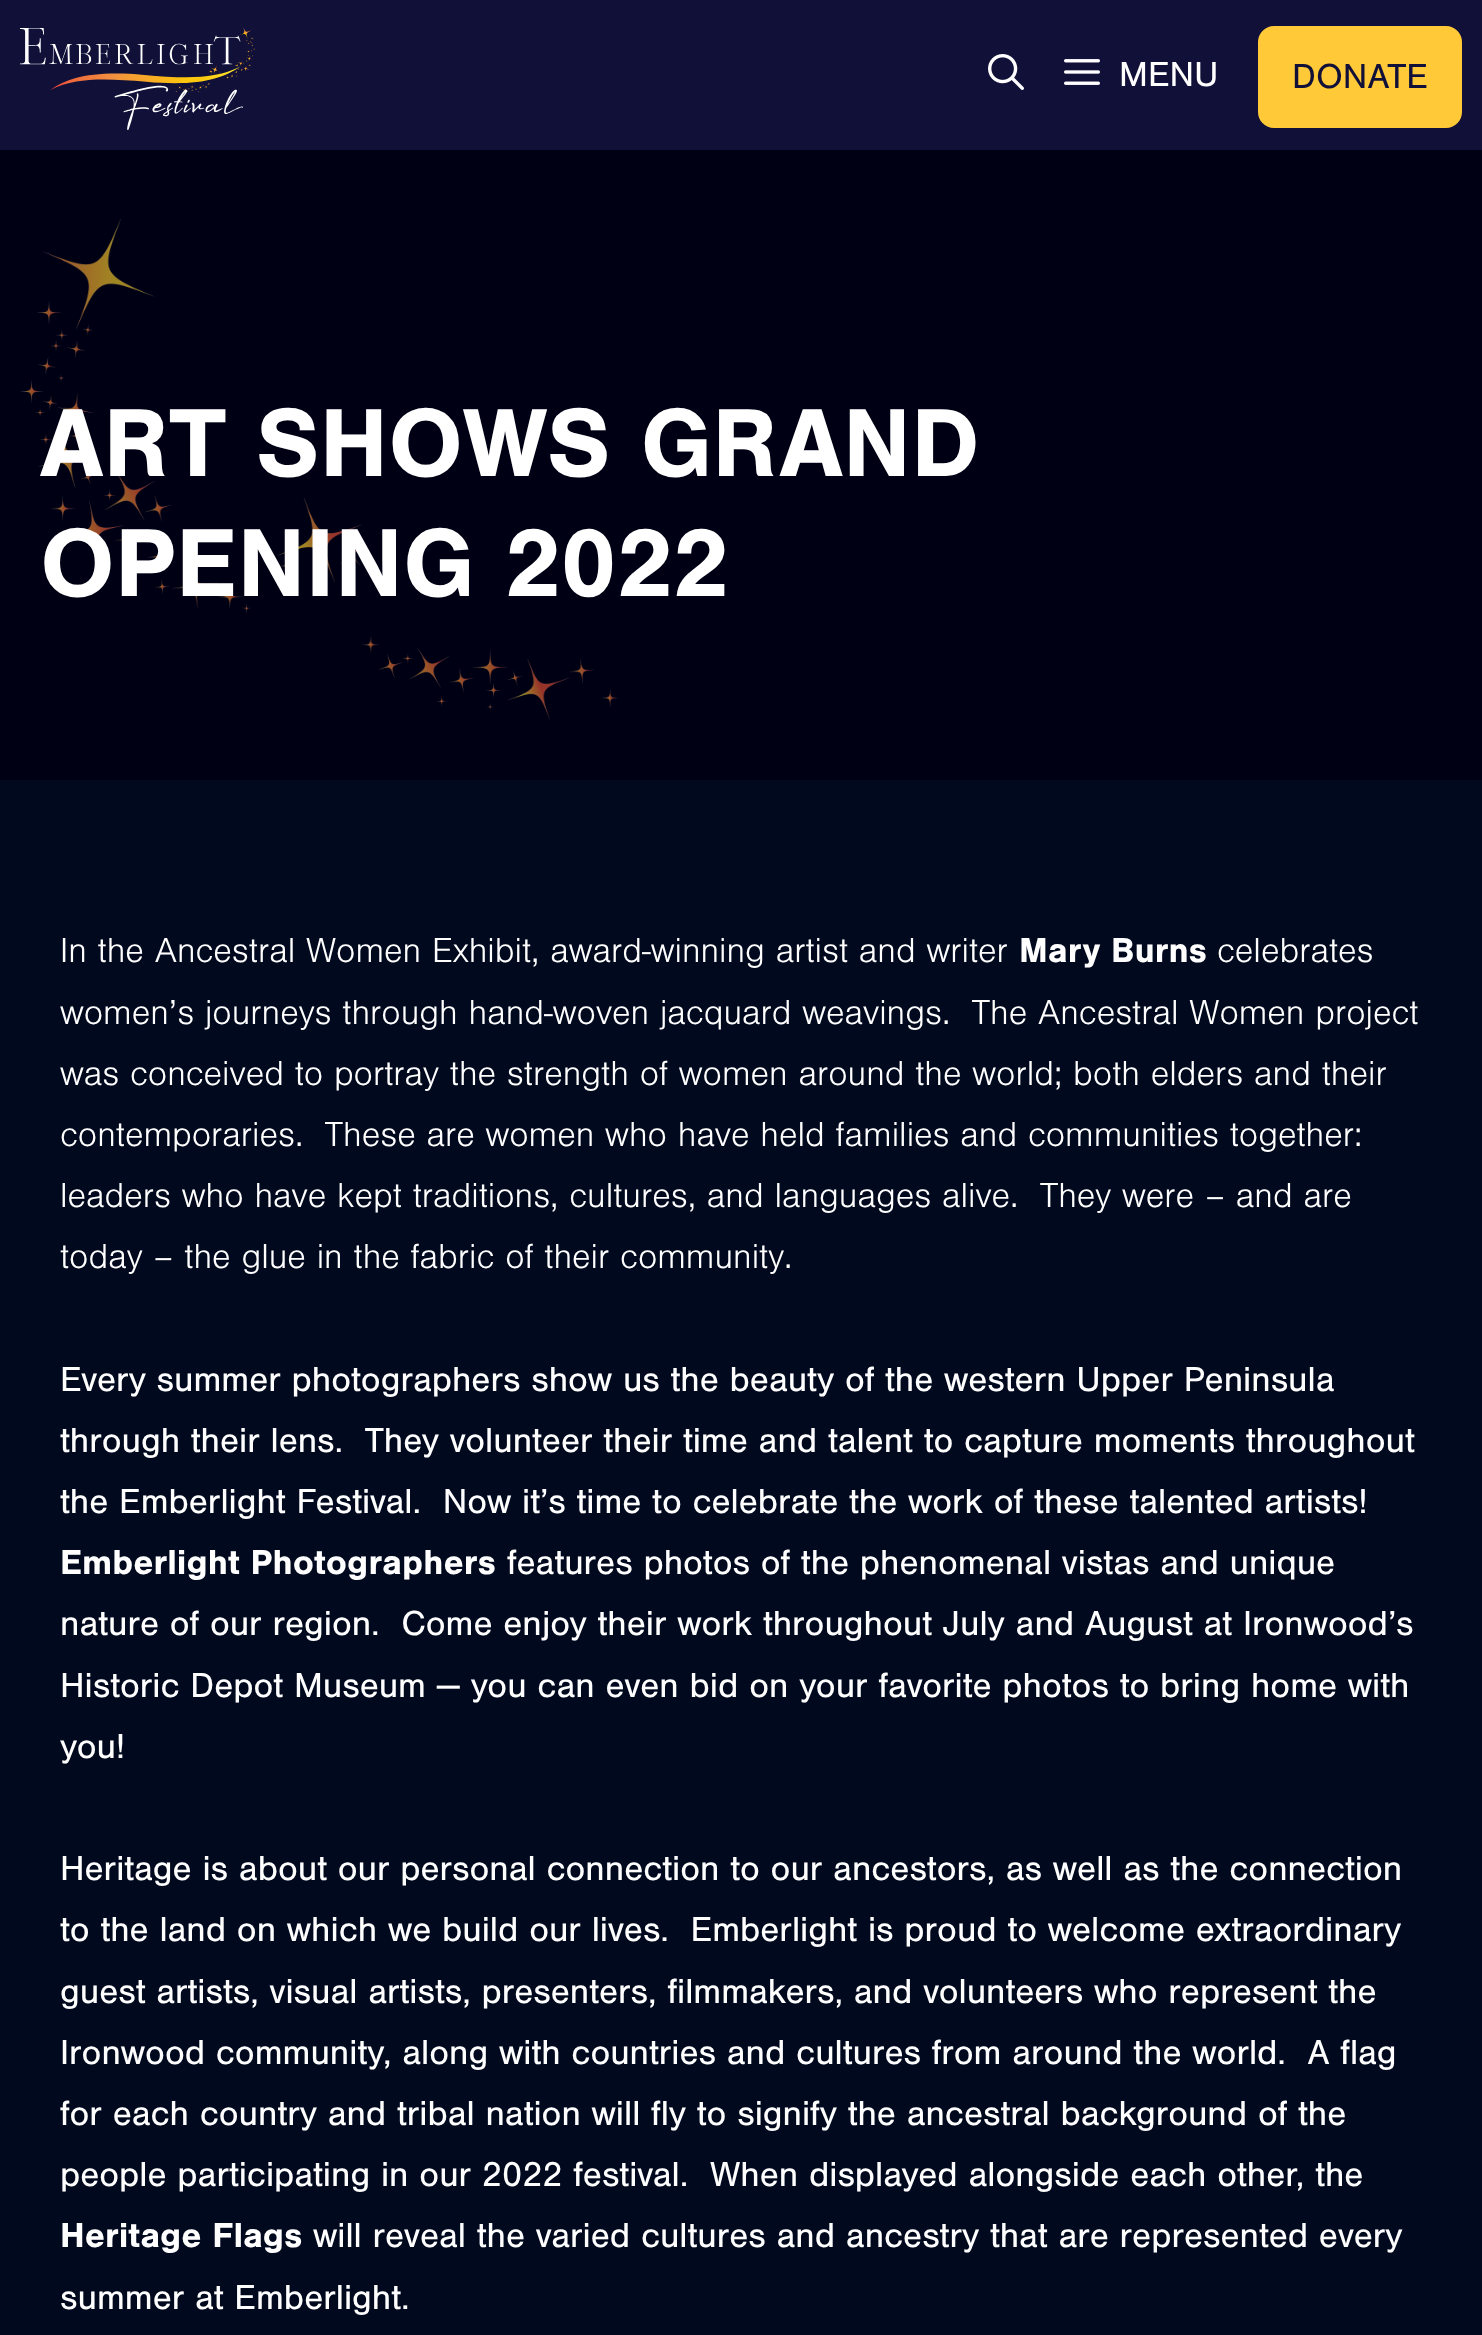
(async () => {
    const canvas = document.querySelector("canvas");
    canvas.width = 1482;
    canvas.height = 2335;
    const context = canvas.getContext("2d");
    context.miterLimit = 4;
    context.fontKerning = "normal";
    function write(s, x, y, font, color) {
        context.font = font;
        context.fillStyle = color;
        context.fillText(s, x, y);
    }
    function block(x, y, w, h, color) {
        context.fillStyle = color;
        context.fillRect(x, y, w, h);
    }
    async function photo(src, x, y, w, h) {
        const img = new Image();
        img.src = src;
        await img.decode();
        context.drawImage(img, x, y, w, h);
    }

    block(0, 0, 1482, 2335, "rgb(0, 9, 30)");
    block(0, 0, 1482, 150, "rgb(17, 16, 56)");
    await photo("media/1.png", 20, 27, 235, 103);
    await photo("media/2.png", 988, 54, 36, 36);
    await photo("media/3.png", 1064, 59, 36, 26);
    write("MENU", 1119, 86, "36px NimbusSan", "rgb(255, 255, 255)");
    context.fillStyle = "rgb(255, 201, 55)";
    context.beginPath();
    context.roundRect(1260, 28, 200, 98, 14);
    context.fill();
    context.strokeStyle = "rgb(255, 201, 55)";
    context.lineWidth = 4;
    context.stroke();
    write("DONATE", 1292, 88, "36px NimbusSan", "rgb(17, 16, 56)");
    block(0, 150, 1482, 630, "rgb(0, 0, 20)");
    await photo("media/4.png", 20, 219, 598, 501);
    write("ART SHOWS GRAND", 40, 476, "bold 100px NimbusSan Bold", "rgb(255, 255, 255)");
    write("OPENING 2022", 40, 596, "bold 100px NimbusSan Bold", "rgb(255, 255, 255)");
    write("In the Ancestral Women Exhibit, award-winning artist and writer", 60, 962, "36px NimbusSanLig", "rgb(255, 255, 255)");
    write("Mary Burns", 1019, 962, "bold 36px NimbusSan Bold", "rgb(255, 255, 255)");
    write("celebrates", 1217, 962, "36px NimbusSanLig", "rgb(255, 255, 255)");
    write("women’s journeys through hand-woven jacquard weavings.  The Ancestral Women project", 60, 1024, "36px NimbusSanLig", "rgb(255, 255, 255)");
    write("was conceived to portray the strength of women around the world; both elders and their", 60, 1085, "36px NimbusSanLig", "rgb(255, 255, 255)");
    write("contemporaries.  These are women who have held families and communities together:", 60, 1146, "36px NimbusSanLig", "rgb(255, 255, 255)");
    write("leaders who have kept traditions, cultures, and languages alive.  They were – and are", 60, 1207, "36px NimbusSanLig", "rgb(255, 255, 255)");
    write("today – the glue in the fabric of their community.", 60, 1268, "36px NimbusSanLig", "rgb(255, 255, 255)");
    write("Every summer photographers show us the beauty of the western Upper Peninsula", 60, 1391, "36px NimbusSan", "rgb(255, 255, 255)");
    write("through their lens.  They volunteer their time and talent to capture moments throughout", 60, 1452, "36px NimbusSan", "rgb(255, 255, 255)");
    write("the Emberlight Festival.  Now it’s time to celebrate the work of these talented artists!", 60, 1513, "36px NimbusSan", "rgb(255, 255, 255)");
    write("Emberlight Photographers", 60, 1574, "bold 36px NimbusSan Bold", "rgb(255, 255, 255)");
    write("features photos of the phenomenal vistas and unique", 507, 1574, "36px NimbusSan", "rgb(255, 255, 255)");
    write("nature of our region.  Come enjoy their work throughout July and August at Ironwood’s", 60, 1635, "36px NimbusSan", "rgb(255, 255, 255)");
    write("Historic Depot Museum — you can even bid on your favorite photos to bring home with", 60, 1697, "36px NimbusSan", "rgb(255, 255, 255)");
    write("you!", 60, 1758, "36px NimbusSan", "rgb(255, 255, 255)");
    write("Heritage is about our personal connection to our ancestors, as well as the connection", 60, 1880, "36px NimbusSan", "rgb(255, 255, 255)");
    write("to the land on which we build our lives.  Emberlight is proud to welcome extraordinary", 60, 1941, "36px NimbusSan", "rgb(255, 255, 255)");
    write("guest artists, visual artists, presenters, filmmakers, and volunteers who represent the", 60, 2003, "36px NimbusSan", "rgb(255, 255, 255)");
    write("Ironwood community, along with countries and cultures from around the world.  A flag", 60, 2064, "36px NimbusSan", "rgb(255, 255, 255)");
    write("for each country and tribal nation will fly to signify the ancestral background of the", 60, 2125, "36px NimbusSan", "rgb(255, 255, 255)");
    write("people participating in our 2022 festival.  When displayed alongside each other, the", 60, 2186, "36px NimbusSan", "rgb(255, 255, 255)");
    write("Heritage Flags", 60, 2247, "bold 36px NimbusSan Bold", "rgb(255, 255, 255)");
    write("will reveal the varied cultures and ancestry that are represented every", 313, 2247, "36px NimbusSan", "rgb(255, 255, 255)");
    write("summer at Emberlight.", 60, 2309, "36px NimbusSan", "rgb(255, 255, 255)");
})();
